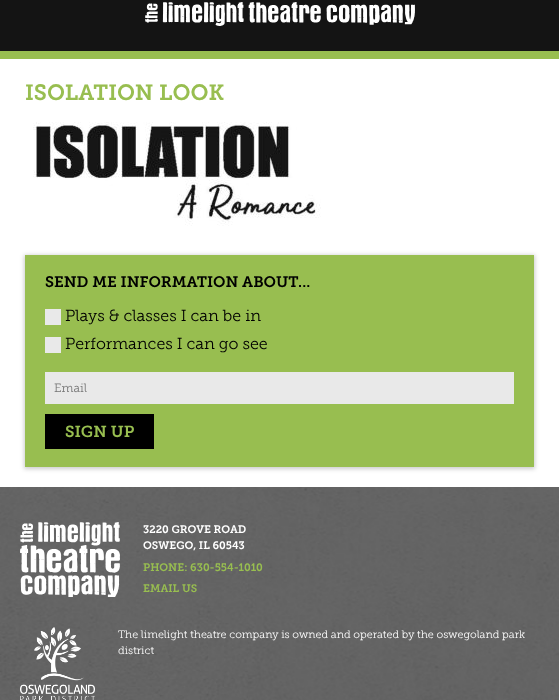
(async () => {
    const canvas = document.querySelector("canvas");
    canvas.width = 559;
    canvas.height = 700;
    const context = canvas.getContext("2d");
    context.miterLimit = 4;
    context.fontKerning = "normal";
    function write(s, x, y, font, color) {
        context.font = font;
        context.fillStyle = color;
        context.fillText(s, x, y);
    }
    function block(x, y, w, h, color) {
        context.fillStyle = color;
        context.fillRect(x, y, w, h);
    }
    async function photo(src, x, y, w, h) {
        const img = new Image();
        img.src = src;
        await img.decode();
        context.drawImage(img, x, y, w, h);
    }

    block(0, 0, 559, 700, "rgb(255, 255, 255)");
    block(0, 0, 559, 51, "rgb(20, 20, 20)");
    await photo("media/1.png", 145, 2, 270, 24);
    block(0, 51, 559, 8, "rgb(152, 190, 80)");
    write("ISOLATION LOOK", 25, 100, "600 22px 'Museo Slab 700'", "rgb(152, 190, 80)");
    await photo("media/2.png", 33, 122, 288, 104);
    context.fillStyle = "rgba(0, 0, 0, 0.2)";
    context.filter = "blur(2px)";
    context.beginPath();
    context.rect(24, 255, 511, 214);
    context.fill();
    context.filter = "none";
    block(25, 255, 509, 212, "rgb(152, 190, 80)");
    write("SEND ME INFORMATION ABOUT...", 45, 287, "600 15.2px 'Museo Slab 700'", "rgb(0, 0, 0)");
    block(45, 309, 16, 16, "rgb(233, 233, 233)");
    write("Plays & classes I can be in", 65, 321, "300 16px 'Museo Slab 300'", "rgb(0, 0, 0)");
    block(45, 337, 16, 16, "rgb(233, 233, 233)");
    write("Performances I can go see", 65, 349, "300 16px 'Museo Slab 300'", "rgb(0, 0, 0)");
    block(45, 372, 469, 32, "rgb(233, 233, 233)");
    write("Email", 54, 392, "300 12px 'Museo Slab 300'", "rgb(117, 117, 117)");
    block(45, 414, 109, 35, "rgb(0, 0, 0)");
    write("SIGN UP", 65, 437, "600 16px 'Museo Slab 700'", "rgb(152, 190, 80)");
    await photo("media/3.png", 0, 487, 559, 213);
    await photo("media/4.png", 20, 522, 100, 75);
    write("3220 GROVE ROAD", 143, 533, "600 10.8px 'Museo Slab 700'", "rgb(255, 255, 255)");
    write("OSWEGO, IL 60543", 143, 549, "600 10.8px 'Museo Slab 700'", "rgb(255, 255, 255)");
    write("PHONE: 630-554-1010", 143, 571, "600 10.8px 'Museo Slab 700'", "rgb(152, 190, 80)");
    write("EMAIL US", 143, 592, "600 10.8px 'Museo Slab 700'", "rgb(152, 190, 80)");
    await photo("media/5.png", 20, 627, 75, 73);
    write("The limelight theatre company is owned and operated by the oswegoland park", 118, 638, "300 10.8px 'Museo Slab 300'", "rgb(255, 255, 255)");
    write("district", 118, 654, "300 10.8px 'Museo Slab 300'", "rgb(255, 255, 255)");
})();
